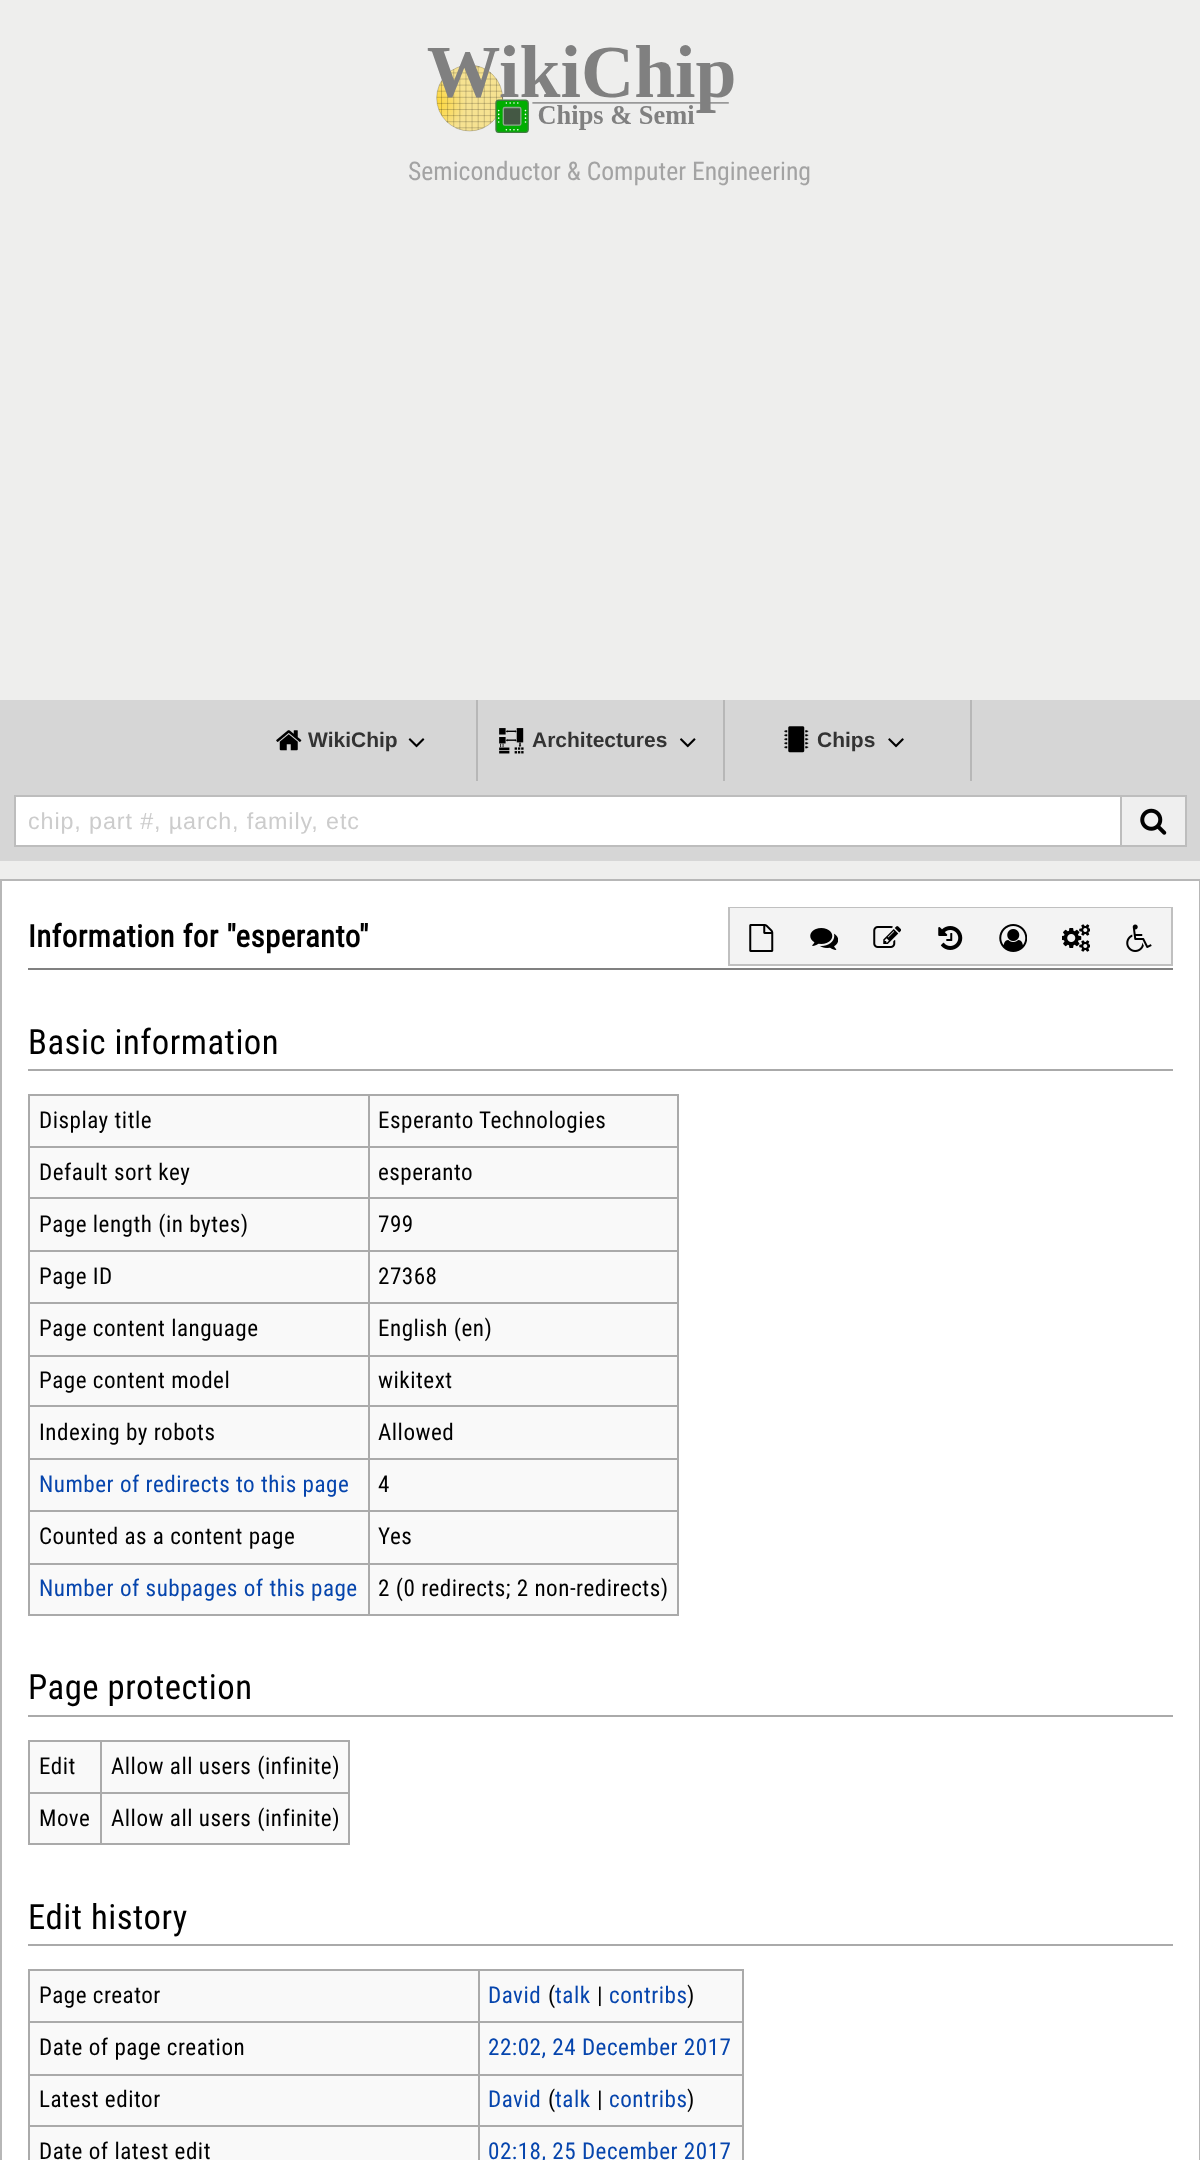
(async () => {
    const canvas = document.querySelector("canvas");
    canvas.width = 1200;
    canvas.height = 2160;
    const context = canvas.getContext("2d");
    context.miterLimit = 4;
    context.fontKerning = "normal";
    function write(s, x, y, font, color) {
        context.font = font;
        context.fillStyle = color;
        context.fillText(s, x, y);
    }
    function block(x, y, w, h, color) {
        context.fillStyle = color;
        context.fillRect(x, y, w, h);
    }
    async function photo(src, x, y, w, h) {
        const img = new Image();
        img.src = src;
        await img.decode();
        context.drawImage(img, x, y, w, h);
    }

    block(0, 0, 1200, 2160, "rgb(238, 238, 237)");
    await photo("media/1.png", 427, 45, 307, 88);
    write("Semiconductor & Computer Engineering", 408, 180, "25.7px Roboto Condensed", "rgb(163, 163, 163)");
    block(0, 700, 1200, 161, "rgb(214, 214, 214)");
    block(476, 700, 2, 81, "rgb(183, 183, 183)");
    await photo("media/2.png", 276, 730, 26, 21);
    write("WikiChip", 308, 747, "bold 21px Liberation Sans", "rgb(51, 51, 51)");
    await photo("media/3.png", 408, 738, 17, 10);
    block(723, 700, 2, 81, "rgb(183, 183, 183)");
    await photo("media/4.png", 499, 728, 25, 26);
    write("Architectures", 532, 747, "bold 21px Liberation Sans", "rgb(51, 51, 51)");
    await photo("media/5.png", 680, 738, 16, 10);
    block(970, 700, 2, 81, "rgb(183, 183, 183)");
    await photo("media/6.png", 784, 726, 25, 27);
    write("Chips", 817, 747, "bold 21px Liberation Sans", "rgb(51, 51, 51)");
    await photo("media/7.png", 888, 738, 16, 10);
    block(16, 797, 1104, 48, "rgb(255, 255, 255)");
    context.strokeStyle = "rgb(189, 189, 189)";
    context.lineWidth = 2;
    context.strokeRect(15, 796, 1109, 50);
    context.letterSpacing = "0.9px";
    write("chip, part #, µarch, family, etc", 28, 829, "23.3px Liberation Sans", "rgb(204, 204, 204)");
    context.fillStyle = "rgb(239, 239, 239)";
    context.beginPath();
    context.rect(1121, 796, 65, 50);
    context.fill();
    context.stroke();
    await photo("media/8.png", 1140, 808, 27, 27);
    context.fillStyle = "rgb(255, 255, 255)";
    context.beginPath();
    context.rect(1, 880, 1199, 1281);
    context.fill();
    context.strokeStyle = "rgb(183, 183, 183)";
    context.stroke();
    block(28, 968, 1145, 2, "rgb(128, 128, 128)");
    context.letterSpacing = "0.5px";
    write("Information for \"esperanto\"", 28, 947, "bold 30.75px Roboto Condensed", "rgb(0, 0, 0)");
    context.strokeStyle = "rgb(192, 192, 192)";
    context.strokeRect(729, 908, 443, 57);
    block(730, 908, 441, 56, "rgb(243, 243, 243)");
    await photo("media/9.png", 749, 924, 25, 28);
    await photo("media/10.png", 810, 928, 28, 22);
    await photo("media/11.png", 873, 926, 28, 22);
    await photo("media/12.png", 938, 926, 25, 24);
    await photo("media/13.png", 999, 924, 28, 28);
    await photo("media/14.png", 1062, 924, 28, 28);
    await photo("media/15.png", 1126, 924, 26, 28);
    block(28, 1069, 1145, 2, "rgb(170, 170, 170)");
    write("Basic information", 28, 1054, "34.75px Roboto Condensed", "rgb(0, 0, 0)");
    block(30, 1096, 647, 518, "rgb(249, 249, 249)");
    block(28, 1094, 651, 2, "rgb(170, 170, 170)");
    block(677, 1094, 2, 521, "rgb(170, 170, 170)");
    block(28, 1614, 651, 2, "rgb(170, 170, 170)");
    block(28, 1094, 2, 521, "rgb(170, 170, 170)");
    write("Display title", 39, 1128, "23.1px Roboto Condensed", "rgb(0, 0, 0)");
    block(368, 1146, 311, 2, "rgb(170, 170, 170)");
    block(368, 1197, 311, 2, "rgb(170, 170, 170)");
    block(368, 1250, 311, 2, "rgb(170, 170, 170)");
    block(368, 1302, 311, 2, "rgb(170, 170, 170)");
    block(368, 1355, 311, 2, "rgb(170, 170, 170)");
    block(368, 1405, 311, 2, "rgb(170, 170, 170)");
    block(368, 1458, 311, 2, "rgb(170, 170, 170)");
    block(368, 1510, 311, 2, "rgb(170, 170, 170)");
    block(368, 1563, 311, 2, "rgb(170, 170, 170)");
    block(368, 1563, 2, 52, "rgb(170, 170, 170)");
    block(28, 1563, 341, 2, "rgb(170, 170, 170)");
    block(368, 1510, 2, 55, "rgb(170, 170, 170)");
    block(28, 1510, 341, 2, "rgb(170, 170, 170)");
    block(368, 1458, 2, 54, "rgb(170, 170, 170)");
    block(28, 1458, 341, 2, "rgb(170, 170, 170)");
    block(368, 1405, 2, 55, "rgb(170, 170, 170)");
    block(28, 1405, 341, 2, "rgb(170, 170, 170)");
    block(368, 1355, 2, 52, "rgb(170, 170, 170)");
    block(28, 1355, 341, 2, "rgb(170, 170, 170)");
    block(368, 1302, 2, 54, "rgb(170, 170, 170)");
    block(28, 1302, 341, 2, "rgb(170, 170, 170)");
    block(368, 1250, 2, 54, "rgb(170, 170, 170)");
    block(28, 1250, 341, 2, "rgb(170, 170, 170)");
    block(368, 1197, 2, 54, "rgb(170, 170, 170)");
    block(28, 1197, 341, 2, "rgb(170, 170, 170)");
    block(368, 1146, 2, 53, "rgb(170, 170, 170)");
    block(28, 1146, 341, 2, "rgb(170, 170, 170)");
    block(368, 1094, 2, 54, "rgb(170, 170, 170)");
    write("Esperanto Technologies", 378, 1128, "23.1px Roboto Condensed", "rgb(0, 0, 0)");
    write("Default sort key", 39, 1180, "23.1px Roboto Condensed", "rgb(0, 0, 0)");
    write("esperanto", 378, 1180, "23.1px Roboto Condensed", "rgb(0, 0, 0)");
    write("Page length (in bytes)", 39, 1232, "23.1px Roboto Condensed", "rgb(0, 0, 0)");
    write("799", 378, 1232, "23.1px Roboto Condensed", "rgb(0, 0, 0)");
    write("Page ID", 39, 1284, "23.1px Roboto Condensed", "rgb(0, 0, 0)");
    write("27368", 378, 1284, "23.1px Roboto Condensed", "rgb(0, 0, 0)");
    write("Page content language", 39, 1336, "23.1px Roboto Condensed", "rgb(0, 0, 0)");
    write("English (en)", 378, 1336, "23.1px Roboto Condensed", "rgb(0, 0, 0)");
    write("Page content model", 39, 1388, "23.1px Roboto Condensed", "rgb(0, 0, 0)");
    write("wikitext", 378, 1388, "23.1px Roboto Condensed", "rgb(0, 0, 0)");
    write("Indexing by robots", 39, 1440, "23.1px Roboto Condensed", "rgb(0, 0, 0)");
    write("Allowed", 378, 1440, "23.1px Roboto Condensed", "rgb(0, 0, 0)");
    write("Number of redirects to this page", 39, 1492, "23.1px Roboto Condensed", "rgb(6, 69, 173)");
    write("4", 378, 1492, "23.1px Roboto Condensed", "rgb(0, 0, 0)");
    write("Counted as a content page", 39, 1544, "23.1px Roboto Condensed", "rgb(0, 0, 0)");
    write("Yes", 378, 1544, "23.1px Roboto Condensed", "rgb(0, 0, 0)");
    write("Number of subpages of this page", 39, 1596, "23.1px Roboto Condensed", "rgb(6, 69, 173)");
    write("2 (0 redirects; 2 non-redirects)", 378, 1596, "23.1px Roboto Condensed", "rgb(0, 0, 0)");
    block(28, 1715, 1145, 2, "rgb(170, 170, 170)");
    write("Page protection", 28, 1699, "34.75px Roboto Condensed", "rgb(0, 0, 0)");
    block(30, 1742, 318, 101, "rgb(249, 249, 249)");
    block(28, 1740, 322, 2, "rgb(170, 170, 170)");
    block(348, 1740, 2, 105, "rgb(170, 170, 170)");
    block(28, 1843, 322, 2, "rgb(170, 170, 170)");
    block(28, 1740, 2, 105, "rgb(170, 170, 170)");
    write("Edit", 39, 1774, "23.1px Roboto Condensed", "rgb(0, 0, 0)");
    block(100, 1792, 250, 2, "rgb(170, 170, 170)");
    block(100, 1792, 2, 53, "rgb(170, 170, 170)");
    block(28, 1792, 74, 2, "rgb(170, 170, 170)");
    block(100, 1740, 2, 54, "rgb(170, 170, 170)");
    write("Allow all users (infinite)", 111, 1774, "23.1px Roboto Condensed", "rgb(0, 0, 0)");
    write("Move", 39, 1826, "23.1px Roboto Condensed", "rgb(0, 0, 0)");
    write("Allow all users (infinite)", 111, 1826, "23.1px Roboto Condensed", "rgb(0, 0, 0)");
    block(28, 1944, 1145, 2, "rgb(170, 170, 170)");
    write("Edit history", 28, 1929, "34.75px Roboto Condensed", "rgb(0, 0, 0)");
    block(30, 1971, 712, 189, "rgb(249, 249, 249)");
    block(28, 1969, 716, 2, "rgb(170, 170, 170)");
    block(742, 1969, 2, 191, "rgb(170, 170, 170)");
    block(28, 1969, 2, 191, "rgb(170, 170, 170)");
    write("Page creator", 39, 2003, "23.1px Roboto Condensed", "rgb(0, 0, 0)");
    block(478, 2021, 266, 2, "rgb(170, 170, 170)");
    block(478, 2074, 266, 2, "rgb(170, 170, 170)");
    block(478, 2125, 266, 2, "rgb(170, 170, 170)");
    block(478, 2125, 2, 35, "rgb(170, 170, 170)");
    block(28, 2125, 452, 2, "rgb(170, 170, 170)");
    block(478, 2074, 2, 52, "rgb(170, 170, 170)");
    block(28, 2074, 452, 2, "rgb(170, 170, 170)");
    block(478, 2021, 2, 55, "rgb(170, 170, 170)");
    block(28, 2021, 452, 2, "rgb(170, 170, 170)");
    block(478, 1969, 2, 54, "rgb(170, 170, 170)");
    write("David", 488, 2003, "23.1px Roboto Condensed", "rgb(6, 69, 173)");
    write("(", 548, 2003, "23.1px Roboto Condensed", "rgb(0, 0, 0)");
    write("talk", 555, 2003, "23.1px Roboto Condensed", "rgb(6, 69, 173)");
    write("|", 597, 2003, "23.1px Roboto Condensed", "rgb(0, 0, 0)");
    write("contribs", 609, 2003, "23.1px Roboto Condensed", "rgb(6, 69, 173)");
    write(")", 687, 2003, "23.1px Roboto Condensed", "rgb(0, 0, 0)");
    write("Date of page creation", 39, 2055, "23.1px Roboto Condensed", "rgb(0, 0, 0)");
    write("22:02, 24 December 2017", 488, 2055, "23.1px Roboto Condensed", "rgb(6, 69, 173)");
    write("Latest editor", 39, 2107, "23.1px Roboto Condensed", "rgb(0, 0, 0)");
    write("David", 488, 2107, "23.1px Roboto Condensed", "rgb(6, 69, 173)");
    write("(", 548, 2107, "23.1px Roboto Condensed", "rgb(0, 0, 0)");
    write("talk", 555, 2107, "23.1px Roboto Condensed", "rgb(6, 69, 173)");
    write("|", 597, 2107, "23.1px Roboto Condensed", "rgb(0, 0, 0)");
    write("contribs", 609, 2107, "23.1px Roboto Condensed", "rgb(6, 69, 173)");
    write(")", 687, 2107, "23.1px Roboto Condensed", "rgb(0, 0, 0)");
    write("Date of latest edit", 39, 2159, "23.1px Roboto Condensed", "rgb(0, 0, 0)");
    write("02:18, 25 December 2017", 488, 2159, "23.1px Roboto Condensed", "rgb(6, 69, 173)");
})();
